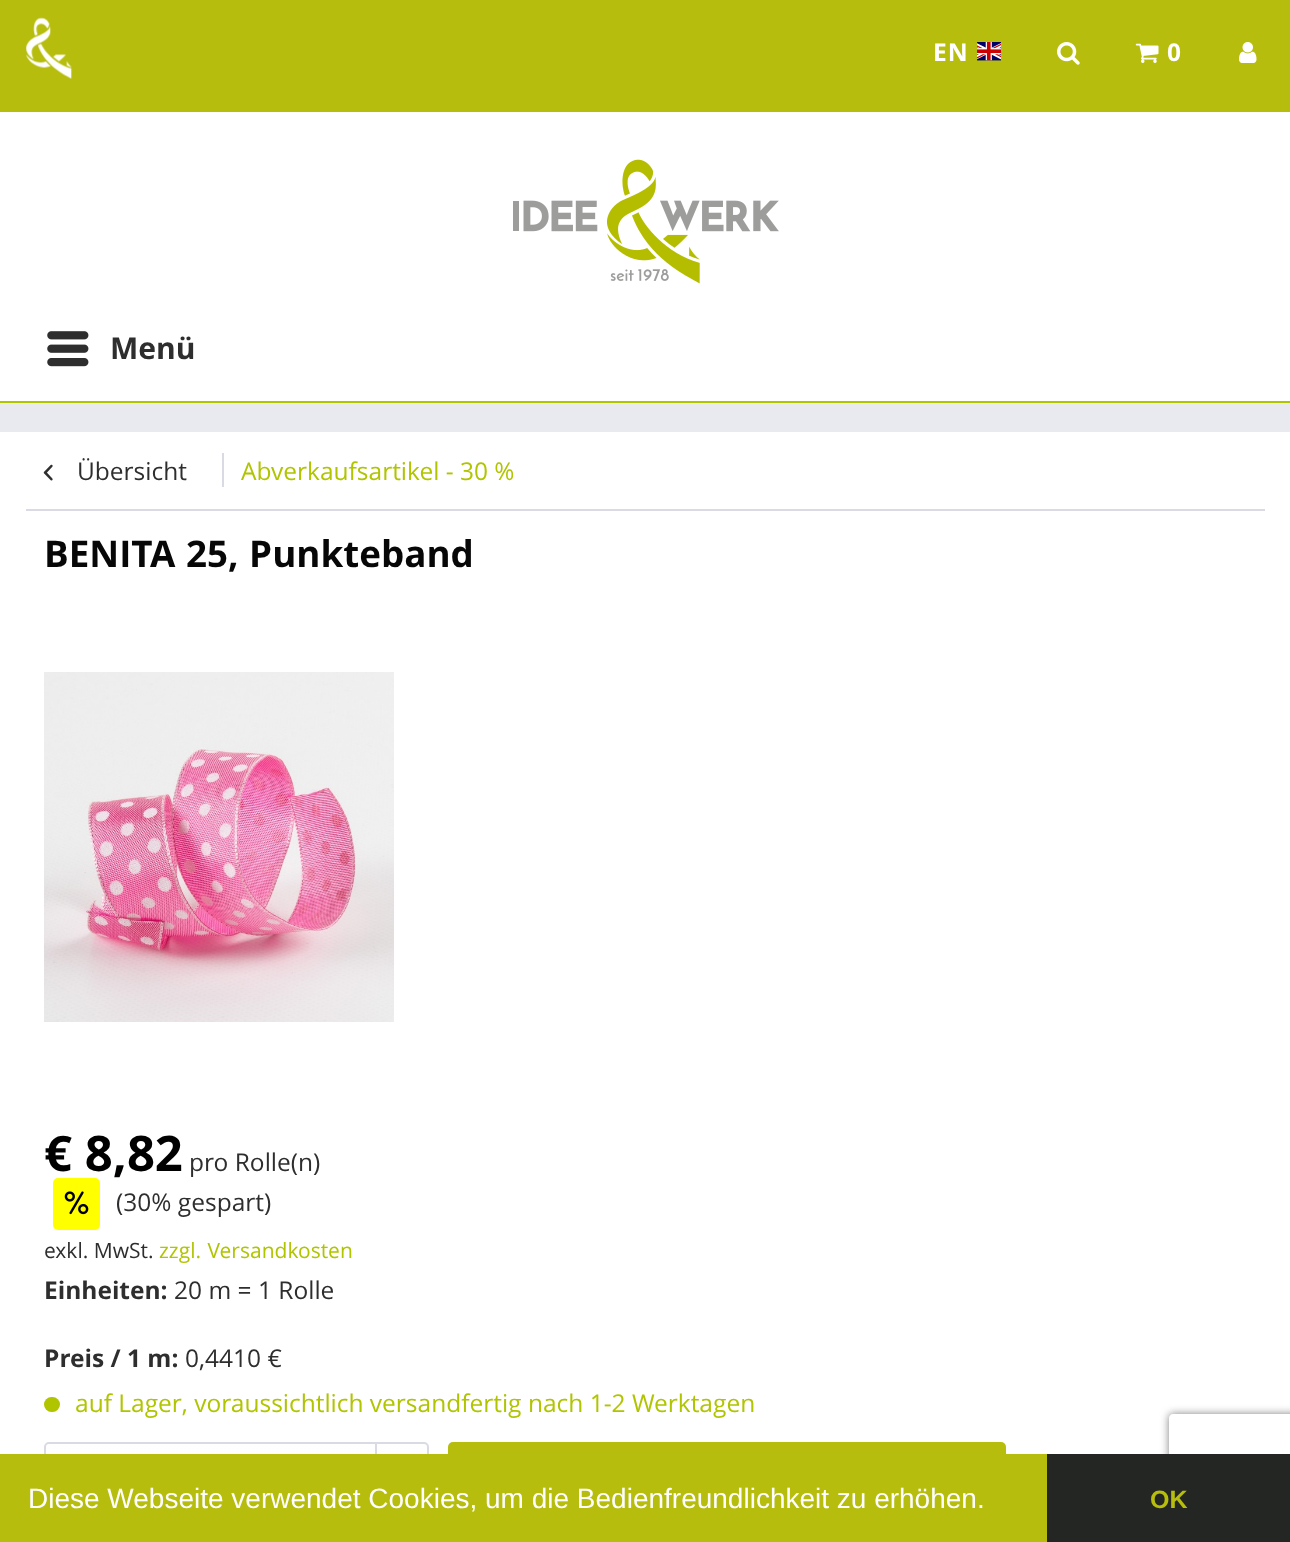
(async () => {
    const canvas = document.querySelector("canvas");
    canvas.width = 1290;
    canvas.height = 1542;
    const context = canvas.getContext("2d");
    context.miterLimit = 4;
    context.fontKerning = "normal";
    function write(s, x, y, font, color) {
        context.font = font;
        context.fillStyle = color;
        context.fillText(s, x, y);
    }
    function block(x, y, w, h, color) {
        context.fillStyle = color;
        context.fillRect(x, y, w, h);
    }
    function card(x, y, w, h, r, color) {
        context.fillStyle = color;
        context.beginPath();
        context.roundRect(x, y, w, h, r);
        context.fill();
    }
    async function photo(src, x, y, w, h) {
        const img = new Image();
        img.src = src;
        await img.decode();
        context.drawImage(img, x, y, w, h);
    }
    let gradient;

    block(0, 0, 1290, 1542, "rgb(233, 233, 240)");
    block(0, 112, 1290, 289, "rgb(255, 255, 255)");
    block(0, 401, 1290, 2, "rgb(176, 196, 0)");
    block(0, 0, 1290, 112, "rgb(182, 189, 13)");
    await photo("media/1.png", 26, 17, 47, 62);
    context.letterSpacing = "1px";
    write("EN", 933, 61, "bold 24.5px Open Sans", "rgb(255, 255, 255)");
    await photo("media/2.png", 977, 42, 24, 19);
    await photo("media/3.png", 1057, 42, 23, 23);
    await photo("media/4.png", 1135, 43, 24, 20);
    write("0", 1167, 61, "bold 24.5px Open Sans", "rgb(255, 255, 255)");
    await photo("media/5.png", 1239, 42, 18, 21);
    await photo("media/6.png", 513, 159, 266, 125);
    await photo("media/7.png", 47, 331, 42, 36);
    context.letterSpacing = "0px";
    write("Menü", 110, 359, "bold 30px Open Sans", "rgb(45, 46, 45)");
    block(0, 432, 1290, 1022, "rgb(255, 255, 255)");
    block(26, 509, 1239, 2, "rgb(218, 218, 229)");
    await photo("media/8.png", 43, 464, 10, 17);
    write("Übersicht", 77, 480, "24.5px Open Sans", "rgb(45, 46, 45)");
    block(222, 453, 2, 34, "rgb(218, 218, 229)");
    write("Abverkaufsartikel - 30 %", 241, 480, "24.5px Open Sans", "rgb(176, 196, 0)");
    context.wordSpacing = "1px";
    write("BENITA 25, Punkteband", 44, 567, "bold 36.75px Open Sans", "rgb(7, 7, 7)");
    await photo("media/9.png", 44, 672, 350, 350);
    context.wordSpacing = "0px";
    write("€ 8,82", 44, 1171, "bold 49px Open Sans", "rgb(0, 0, 0)");
    write("pro Rolle(n)", 189, 1171, "24.5px Open Sans", "rgb(45, 46, 45)");
    card(53, 1178, 47, 52, 5, "rgb(255, 255, 0)");
    await photo("media/10.png", 64, 1191, 25, 24);
    write("(30% gespart)", 116, 1211, "24.5px Open Sans", "rgb(45, 46, 45)");
    write("exkl. MwSt.", 44, 1258, "21px Open Sans", "rgb(45, 46, 45)");
    context.wordSpacing = "1px";
    write("zzgl. Versandkosten", 159, 1258, "21px Open Sans", "rgb(176, 196, 0)");
    context.wordSpacing = "0px";
    write("Einheiten:", 44, 1299, "bold 24.5px Open Sans", "rgb(45, 46, 45)");
    write("20 m = 1 Rolle", 174, 1299, "24.5px Open Sans", "rgb(45, 46, 45)");
    write("Preis / 1 m:", 44, 1367, "bold 24.5px Open Sans", "rgb(45, 46, 45)");
    write("0,4410 €", 185, 1367, "24.5px Open Sans", "rgb(45, 46, 45)");
    card(44, 1397, 16, 15, 7.5, "rgb(176, 196, 0)");
    write("auf Lager, voraussichtlich versandfertig nach 1-2 Werktagen", 75, 1412, "24.5px Open Sans", "rgb(176, 196, 0)");
    gradient = context.createLinearGradient(236, 1444, 236, 1514);
    gradient.addColorStop(0, "rgb(255, 255, 255)");
    gradient.addColorStop(1, "rgb(248, 248, 250)");
    context.fillStyle = gradient;
    context.beginPath();
    context.roundRect(46, 1444, 381, 70, 4);
    context.fill();
    context.beginPath();
    context.roundRect(45, 1443, 383, 72, 4);
    context.strokeStyle = "rgb(218, 218, 229)";
    context.lineWidth = 2;
    context.stroke();
    block(375, 1444, 2, 10, "rgb(218, 218, 229)");
    card(448, 1442, 558, 74, 5, "rgb(182, 189, 13)");
    block(0, 1454, 1047, 88, "rgb(182, 189, 13)");
    write("Diese Webseite verwendet Cookies, um die Bedienfreundlichkeit zu erhöhen.", 28, 1508, "28px Liberation Sans", "rgb(255, 255, 255)");
    context.save();
    context.beginPath();
    context.moveTo(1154, 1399);
    context.lineTo(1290, 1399);
    context.lineTo(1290, 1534);
    context.lineTo(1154, 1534);
    context.closePath();
    context.moveTo(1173, 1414);
    context.lineTo(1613, 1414);
    context.bezierCurveTo(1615, 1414, 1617, 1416, 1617, 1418);
    context.lineTo(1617, 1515);
    context.bezierCurveTo(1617, 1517, 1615, 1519, 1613, 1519);
    context.lineTo(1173, 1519);
    context.bezierCurveTo(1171, 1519, 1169, 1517, 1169, 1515);
    context.lineTo(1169, 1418);
    context.bezierCurveTo(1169, 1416, 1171, 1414, 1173, 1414);
    context.closePath();
    context.clip("evenodd");
    context.fillStyle = "rgb(128, 128, 128)";
    context.filter = "blur(4.5px)";
    context.beginPath();
    context.roundRect(1169, 1414, 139, 105, 4);
    context.fill();
    context.filter = "none";
    context.restore();
    block(1047, 1454, 243, 88, "rgb(36, 38, 36)");
    write("OK", 1150, 1508, "bold 25px Liberation Sans", "rgb(182, 189, 13)");
})();
